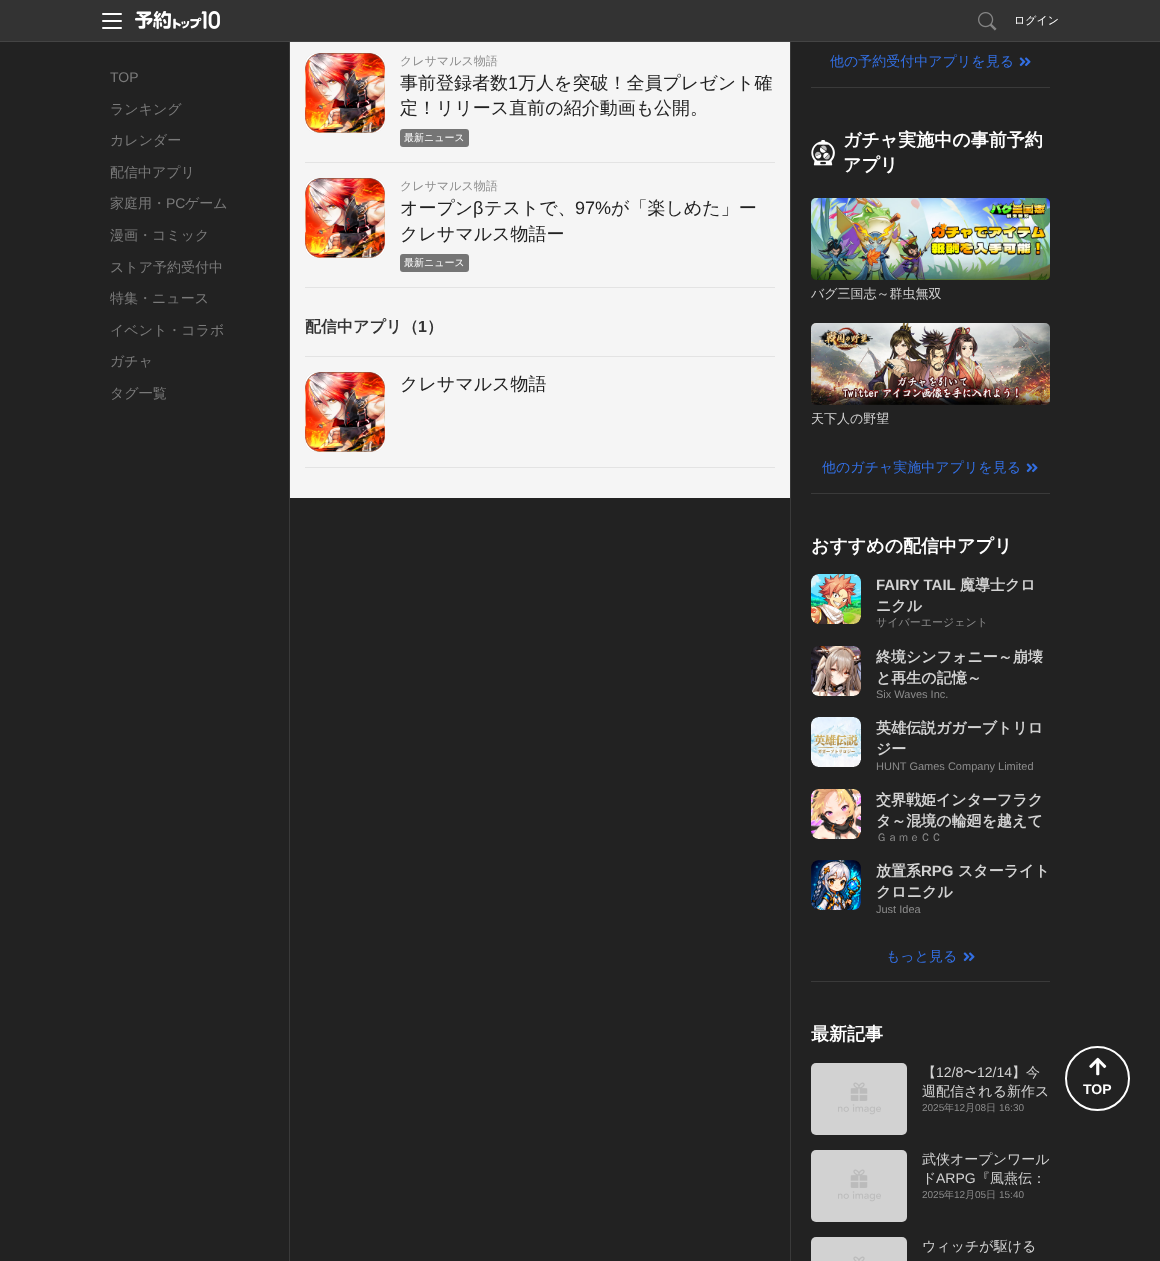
(async () => {
    const canvas = document.querySelector("canvas");
    canvas.width = 1160;
    canvas.height = 1261;
    const context = canvas.getContext("2d");
    context.miterLimit = 4;
    context.fontKerning = "normal";
    function write(s, x, y, font, color) {
        context.font = font;
        context.fillStyle = color;
        context.fillText(s, x, y);
    }
    function block(x, y, w, h, color) {
        context.fillStyle = color;
        context.fillRect(x, y, w, h);
    }
    function card(x, y, w, h, r, color) {
        context.fillStyle = color;
        context.beginPath();
        context.roundRect(x, y, w, h, r);
        context.fill();
    }
    async function photo(src, x, y, w, h) {
        const img = new Image();
        img.src = src;
        await img.decode();
        context.drawImage(img, x, y, w, h);
    }

    block(0, 0, 1160, 1261, "rgb(34, 34, 34)");
    block(0, 0, 1160, 41, "rgb(51, 51, 51)");
    block(0, 41, 1160, 1, "rgb(68, 68, 68)");
    await photo("media/1.png", 102, 13, 20, 16);
    await photo("media/2.png", 135, 11, 85, 19);
    await photo("media/3.png", 978, 12, 19, 19);
    write("ログイン", 1014, 24, "500 11px WenQuanYi Zen Hei", "rgb(255, 255, 255)");
    block(289, 42, 1, 1219, "rgb(58, 58, 58)");
    write("TOP", 110, 82, "14px Liberation Sans", "rgb(122, 122, 122)");
    write("ランキング", 110, 114, "500 14px WenQuanYi Zen Hei", "rgb(122, 122, 122)");
    write("カレンダー", 110, 145, "500 14px WenQuanYi Zen Hei", "rgb(122, 122, 122)");
    write("配信中アプリ", 110, 177, "500 14px WenQuanYi Zen Hei", "rgb(122, 122, 122)");
    write("家庭用・", 110, 208, "500 14px WenQuanYi Zen Hei", "rgb(122, 122, 122)");
    write("PC", 166, 208, "14px Liberation Sans", "rgb(122, 122, 122)");
    write("ゲーム", 185, 208, "500 14px WenQuanYi Zen Hei", "rgb(122, 122, 122)");
    write("漫画・コミック", 110, 240, "500 14px WenQuanYi Zen Hei", "rgb(122, 122, 122)");
    write("ストア予約受付中", 110, 272, "500 14px WenQuanYi Zen Hei", "rgb(122, 122, 122)");
    write("特集・ニュース", 110, 303, "500 14px WenQuanYi Zen Hei", "rgb(122, 122, 122)");
    write("イベント・コラボ", 110, 335, "500 14px WenQuanYi Zen Hei", "rgb(122, 122, 122)");
    write("ガチャ", 110, 366, "500 14px WenQuanYi Zen Hei", "rgb(122, 122, 122)");
    write("タグ一覧", 110, 398, "500 14px WenQuanYi Zen Hei", "rgb(122, 122, 122)");
    block(290, 42, 500, 456, "rgb(245, 245, 245)");
    block(305, 162, 470, 1, "rgb(227, 227, 227)");
    card(305, 53, 80, 80, 12, "rgb(232, 232, 232)");
    await photo("media/4.png", 305, 53, 80, 80);
    write("クレサマルス物語", 400, 65, "500 12px WenQuanYi Zen Hei", "rgb(140, 140, 140)");
    write("事前登録者数", 400, 89, "500 18px WenQuanYi Zen Hei", "rgb(34, 34, 34)");
    write("1", 508, 89, "18px Liberation Sans", "rgb(34, 34, 34)");
    write("万人を突破！全員プレゼント確", 518, 89, "500 18px WenQuanYi Zen Hei", "rgb(34, 34, 34)");
    write("定！リリース直前の紹介動画も公開。", 400, 114, "500 18px WenQuanYi Zen Hei", "rgb(34, 34, 34)");
    card(400, 129, 69, 18, 3, "rgb(117, 117, 117)");
    write("最新ニュース", 404, 141, "500 10px WenQuanYi Zen Hei", "rgb(255, 255, 255)");
    block(305, 287, 470, 1, "rgb(227, 227, 227)");
    card(305, 178, 80, 80, 12, "rgb(232, 232, 232)");
    await photo("media/4.png", 305, 178, 80, 80);
    write("クレサマルス物語", 400, 190, "500 12px WenQuanYi Zen Hei", "rgb(140, 140, 140)");
    write("オープン", 400, 214, "500 18px WenQuanYi Zen Hei", "rgb(34, 34, 34)");
    write("β", 473, 214, "18px Liberation Sans", "rgb(34, 34, 34)");
    write("テストで、", 484, 214, "500 18px WenQuanYi Zen Hei", "rgb(34, 34, 34)");
    write("97%", 575, 214, "18px Liberation Sans", "rgb(34, 34, 34)");
    write("が「楽しめた」ー", 611, 214, "500 18px WenQuanYi Zen Hei", "rgb(34, 34, 34)");
    write("クレサマルス物語ー", 400, 240, "500 18px WenQuanYi Zen Hei", "rgb(34, 34, 34)");
    card(400, 254, 69, 18, 3, "rgb(117, 117, 117)");
    write("最新ニュース", 404, 266, "500 10px WenQuanYi Zen Hei", "rgb(255, 255, 255)");
    write("配信中アプリ（", 305, 332, "bold 16px WenQuanYi Zen Hei", "rgb(51, 51, 51)");
    write("1", 418, 332, "bold 16px Liberation Sans", "rgb(51, 51, 51)");
    write("）", 427, 332, "bold 16px WenQuanYi Zen Hei", "rgb(51, 51, 51)");
    block(305, 356, 470, 1, "rgb(227, 227, 227)");
    block(305, 467, 470, 1, "rgb(227, 227, 227)");
    card(305, 372, 80, 80, 12, "rgb(232, 232, 232)");
    await photo("media/4.png", 305, 372, 80, 80);
    write("クレサマルス物語", 400, 390, "500 18px WenQuanYi Zen Hei", "rgb(34, 34, 34)");
    block(790, 42, 1, 1219, "rgb(58, 58, 58)");
    block(811, 87, 239, 1, "rgb(58, 58, 58)");
    write("他の予約受付中アプリを見る", 830, 66, "500 14px WenQuanYi Zen Hei", "rgb(51, 111, 227)");
    await photo("media/5.png", 1019, 57, 12, 10);
    block(811, 493, 239, 1, "rgb(58, 58, 58)");
    await photo("media/6.png", 811, 140, 24, 26);
    write("ガチャ実施中の事前予約", 843, 146, "bold 18px WenQuanYi Zen Hei", "rgb(255, 255, 255)");
    write("アプリ", 843, 171, "bold 18px WenQuanYi Zen Hei", "rgb(255, 255, 255)");
    await photo("media/7.png", 811, 198, 239, 82);
    write("バグ三国志～群虫無双", 811, 298, "500 13px WenQuanYi Zen Hei", "rgb(211, 211, 211)");
    await photo("media/8.png", 811, 323, 239, 82);
    write("天下人の野望", 811, 423, "500 13px WenQuanYi Zen Hei", "rgb(211, 211, 211)");
    write("他のガチャ実施中アプリを見る", 822, 472, "500 14px WenQuanYi Zen Hei", "rgb(51, 111, 227)");
    await photo("media/5.png", 1026, 463, 12, 10);
    block(811, 981, 239, 1, "rgb(58, 58, 58)");
    write("おすすめの配信中アプリ", 811, 552, "bold 18px WenQuanYi Zen Hei", "rgb(255, 255, 255)");
    await photo("media/9.png", 811, 574, 50, 50);
    write("FAIRY TAIL", 876, 590, "bold 15px Liberation Sans", "rgb(211, 211, 211)");
    write("魔導士クロ", 960, 590, "bold 15px WenQuanYi Zen Hei", "rgb(211, 211, 211)");
    write("ニクル", 876, 611, "bold 15px WenQuanYi Zen Hei", "rgb(211, 211, 211)");
    write("サイバーエージェント", 876, 626, "500 11px WenQuanYi Zen Hei", "rgb(140, 140, 140)");
    await photo("media/10.png", 811, 646, 50, 50);
    write("終境シンフォニー～崩壊", 876, 662, "bold 15px WenQuanYi Zen Hei", "rgb(211, 211, 211)");
    write("と再生の記憶～", 876, 683, "bold 15px WenQuanYi Zen Hei", "rgb(211, 211, 211)");
    write("Six Waves Inc.", 876, 698, "11px Liberation Sans", "rgb(140, 140, 140)");
    await photo("media/11.png", 811, 717, 50, 50);
    write("英雄伝説ガガーブトリロ", 876, 733, "bold 15px WenQuanYi Zen Hei", "rgb(211, 211, 211)");
    write("ジー", 876, 754, "bold 15px WenQuanYi Zen Hei", "rgb(211, 211, 211)");
    write("HUNT Games Company Limited", 876, 770, "11px Liberation Sans", "rgb(140, 140, 140)");
    await photo("media/12.png", 811, 789, 50, 50);
    write("交界戦姫インターフラク", 876, 805, "bold 15px WenQuanYi Zen Hei", "rgb(211, 211, 211)");
    write("タ～混境の輪廻を越えて", 876, 826, "bold 15px WenQuanYi Zen Hei", "rgb(211, 211, 211)");
    write("ＧａｍｅＣＣ", 876, 841, "500 11px WenQuanYi Zen Hei", "rgb(140, 140, 140)");
    await photo("media/13.png", 811, 860, 50, 50);
    write("放置系", 876, 876, "bold 15px WenQuanYi Zen Hei", "rgb(211, 211, 211)");
    write("RPG", 921, 876, "bold 15px Liberation Sans", "rgb(211, 211, 211)");
    write("スターライト", 958, 876, "bold 15px WenQuanYi Zen Hei", "rgb(211, 211, 211)");
    write("クロニクル", 876, 897, "bold 15px WenQuanYi Zen Hei", "rgb(211, 211, 211)");
    write("Just Idea", 876, 913, "11px Liberation Sans", "rgb(140, 140, 140)");
    write("もっと見る", 886, 961, "500 14px WenQuanYi Zen Hei", "rgb(51, 111, 227)");
    await photo("media/5.png", 963, 952, 12, 10);
    write("最新記事", 811, 1040, "bold 18px WenQuanYi Zen Hei", "rgb(255, 255, 255)");
    card(811, 1063, 96, 72, 5, "rgb(210, 210, 210)");
    await photo("media/14.png", 838, 1082, 43, 33);
    write("【", 922, 1077, "500 14px WenQuanYi Zen Hei", "rgb(211, 211, 211)");
    write("12/8", 936, 1077, "14px Liberation Sans", "rgb(211, 211, 211)");
    write("〜", 963, 1077, "500 14px WenQuanYi Zen Hei", "rgb(211, 211, 211)");
    write("12/14", 977, 1077, "14px Liberation Sans", "rgb(211, 211, 211)");
    write("】今", 1012, 1077, "500 14px WenQuanYi Zen Hei", "rgb(211, 211, 211)");
    write("週配信される新作ス", 922, 1096, "500 14px WenQuanYi Zen Hei", "rgb(211, 211, 211)");
    write("2025", 922, 1111, "10px Liberation Sans", "rgb(140, 140, 140)");
    write("年", 944, 1111, "500 10px WenQuanYi Zen Hei", "rgb(140, 140, 140)");
    write("12", 954, 1111, "10px Liberation Sans", "rgb(140, 140, 140)");
    write("月", 965, 1111, "500 10px WenQuanYi Zen Hei", "rgb(140, 140, 140)");
    write("08", 975, 1111, "10px Liberation Sans", "rgb(140, 140, 140)");
    write("日", 986, 1111, "500 10px WenQuanYi Zen Hei", "rgb(140, 140, 140)");
    write("16:30", 999, 1111, "10px Liberation Sans", "rgb(140, 140, 140)");
    card(811, 1150, 96, 72, 5, "rgb(210, 210, 210)");
    await photo("media/14.png", 838, 1169, 43, 33);
    write("武侠オープンワール", 922, 1164, "500 14px WenQuanYi Zen Hei", "rgb(211, 211, 211)");
    write("ド", 922, 1183, "500 14px WenQuanYi Zen Hei", "rgb(211, 211, 211)");
    write("ARPG", 936, 1183, "14px Liberation Sans", "rgb(211, 211, 211)");
    write("『風燕伝：", 976, 1183, "500 14px WenQuanYi Zen Hei", "rgb(211, 211, 211)");
    write("2025", 922, 1198, "10px Liberation Sans", "rgb(140, 140, 140)");
    write("年", 944, 1198, "500 10px WenQuanYi Zen Hei", "rgb(140, 140, 140)");
    write("12", 954, 1198, "10px Liberation Sans", "rgb(140, 140, 140)");
    write("月", 965, 1198, "500 10px WenQuanYi Zen Hei", "rgb(140, 140, 140)");
    write("05", 975, 1198, "10px Liberation Sans", "rgb(140, 140, 140)");
    write("日", 986, 1198, "500 10px WenQuanYi Zen Hei", "rgb(140, 140, 140)");
    write("15:40", 999, 1198, "10px Liberation Sans", "rgb(140, 140, 140)");
    card(811, 1237, 96, 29, 5, "rgb(210, 210, 210)");
    await photo("media/15.png", 853, 1256, 12, 5);
    write("ウィッチが駆ける", 922, 1251, "500 14px WenQuanYi Zen Hei", "rgb(211, 211, 211)");
    context.beginPath();
    context.arc(1097.5, 1078.5, 31.5, 0, Math.PI * 2);
    context.strokeStyle = "rgb(255, 255, 255)";
    context.lineWidth = 2;
    context.stroke();
    await photo("media/16.png", 1089, 1057, 18, 19);
    write("TOP", 1083, 1094, "bold 14px Liberation Sans", "rgb(255, 255, 255)");
})();
